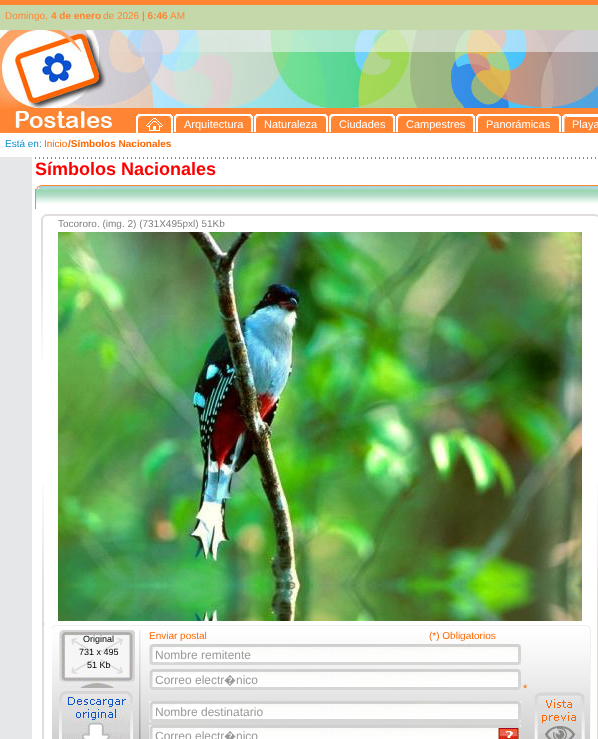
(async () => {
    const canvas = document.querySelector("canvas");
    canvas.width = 598;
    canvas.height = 739;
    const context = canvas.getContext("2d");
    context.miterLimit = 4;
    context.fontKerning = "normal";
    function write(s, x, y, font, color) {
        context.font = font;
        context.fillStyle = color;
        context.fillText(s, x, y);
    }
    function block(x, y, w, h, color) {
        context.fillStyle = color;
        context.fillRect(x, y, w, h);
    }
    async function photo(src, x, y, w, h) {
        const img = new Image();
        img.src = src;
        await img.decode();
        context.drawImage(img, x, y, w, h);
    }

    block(0, 0, 598, 739, "rgb(255, 255, 255)");
    block(0, 0, 598, 5, "rgb(255, 133, 51)");
    block(0, 5, 598, 25, "rgb(196, 216, 169)");
    write("Domingo,", 5, 19, "10px Liberation Sans", "rgb(255, 133, 51)");
    write("4 de enero", 51, 19, "bold 10px Liberation Sans", "rgb(255, 133, 51)");
    write("de 2026", 103, 19, "10px Liberation Sans", "rgb(255, 133, 51)");
    write("| 6:46", 142, 19, "bold 10px Liberation Sans", "rgb(255, 133, 51)");
    write("AM", 170, 19, "10px Liberation Sans", "rgb(255, 133, 51)");
    await photo("media/1.png", 0, 30, 598, 22);
    await photo("media/2.png", 0, 52, 136, 81);
    await photo("media/3.png", 136, 52, 462, 81);
    await photo("media/4.png", 136, 114, 5, 19);
    await photo("media/5.png", 141, 114, 32, 19);
    await photo("media/6.png", 146, 118, 17, 13);
    await photo("media/7.png", 174, 114, 5, 18);
    await photo("media/8.png", 179, 114, 75, 18);
    write("Arquitectura", 184, 128, "11px Liberation Sans", "rgb(255, 255, 255)");
    await photo("media/9.png", 254, 114, 5, 18);
    await photo("media/10.png", 259, 114, 69, 18);
    write("Naturaleza", 264, 128, "11px Liberation Sans", "rgb(255, 255, 255)");
    await photo("media/11.png", 329, 114, 5, 18);
    await photo("media/12.png", 334, 114, 62, 18);
    write("Ciudades", 339, 128, "11px Liberation Sans", "rgb(255, 255, 255)");
    await photo("media/13.png", 396, 114, 5, 18);
    await photo("media/8.png", 401, 114, 75, 18);
    write("Campestres", 406, 128, "11px Liberation Sans", "rgb(255, 255, 255)");
    await photo("media/9.png", 476, 114, 5, 18);
    await photo("media/14.png", 481, 114, 80, 18);
    write("Panorámicas", 486, 128, "11px Liberation Sans", "rgb(255, 255, 255)");
    await photo("media/15.png", 562, 114, 6, 18);
    block(567, 114, 31, 3, "rgb(255, 255, 255)");
    write("Playa", 572, 128, "11px Liberation Sans", "rgb(255, 255, 255)");
    block(0, 157, 32, 582, "rgb(230, 231, 232)");
    write("Está en:", 5, 147, "10px Liberation Sans", "rgb(11, 143, 205)");
    write("Inicio", 44, 147, "10px Liberation Sans", "rgb(254, 103, 0)");
    write("/Símbolos Nacionales", 68, 147, "bold 10px Liberation Sans", "rgb(254, 103, 0)");
    await photo("media/16.png", 35, 157, 561, 2);
    write("Símbolos Nacionales", 35, 175, "bold 18px Liberation Sans", "rgb(255, 0, 0)");
    await photo("media/17.png", 36, 185, 562, 4);
    await photo("media/18.png", 36, 189, 562, 15);
    block(35, 189, 1, 20, "rgb(255, 144, 1)");
    await photo("media/19.png", 41, 214, 557, 4);
    await photo("media/20.png", 41, 218, 2, 141);
    write("Tocororo. (img. 2) (731X495pxl) 51Kb", 58, 227, "10px Liberation Sans", "rgb(126, 128, 127)");
    await photo("media/21.png", 58, 232, 524, 354);
    await photo("media/22.png", 58, 586, 524, 35);
    await photo("media/23.png", 44, 623, 554, 2);
    await photo("media/24.png", 42, 485, 2, 140);
    await photo("media/25.png", 597, 485, 1, 138);
    block(42, 625, 2, 114, "rgb(224, 220, 220)");
    await photo("media/26.png", 52, 625, 3, 114);
    await photo("media/27.png", 55, 625, 532, 114);
    await photo("media/28.png", 59, 630, 76, 58);
    write("Original", 83, 642, "9px Liberation Sans", "rgb(0, 0, 0)");
    write("731 x 495", 79, 655, "9px Liberation Sans", "rgb(0, 0, 0)");
    write("51 Kb", 87, 668, "9px Liberation Sans", "rgb(0, 0, 0)");
    await photo("media/29.png", 59, 691, 74, 48);
    await photo("media/30.png", 139, 630, 2, 109);
    write("Enviar postal", 149, 639, "10px Liberation Sans", "rgb(254, 103, 0)");
    write("(*) Obligatorios", 429, 639, "10px Liberation Sans", "rgb(254, 103, 0)");
    await photo("media/31.png", 149, 644, 372, 21);
    write("Nombre remitente", 155, 659, "12px Liberation Sans", "rgb(153, 153, 153)");
    await photo("media/31.png", 149, 669, 372, 21);
    write("Correo electr", 155, 684, "12px Liberation Sans", "rgb(153, 153, 153)");
    write("�", 224, 684, "12px Noto Sans", "rgb(153, 153, 153)");
    write("nico", 236, 684, "12px Liberation Sans", "rgb(153, 153, 153)");
    await photo("media/31.png", 149, 701, 372, 21);
    write("Nombre destinatario", 155, 716, "12px Liberation Sans", "rgb(153, 153, 153)");
    await photo("media/32.png", 149, 725, 372, 14);
    write("Correo electr", 155, 740, "12px Liberation Sans", "rgb(153, 153, 153)");
    write("�", 224, 740, "12px Noto Sans", "rgb(153, 153, 153)");
    write("nico", 236, 740, "12px Liberation Sans", "rgb(153, 153, 153)");
    await photo("media/33.png", 498, 728, 21, 11);
    write("*", 523, 692, "11px Liberation Sans", "rgb(254, 103, 0)");
    await photo("media/34.png", 534, 692, 51, 47);
    await photo("media/35.png", 587, 625, 4, 114);
    block(597, 625, 1, 114, "rgb(224, 220, 220)");
})();
